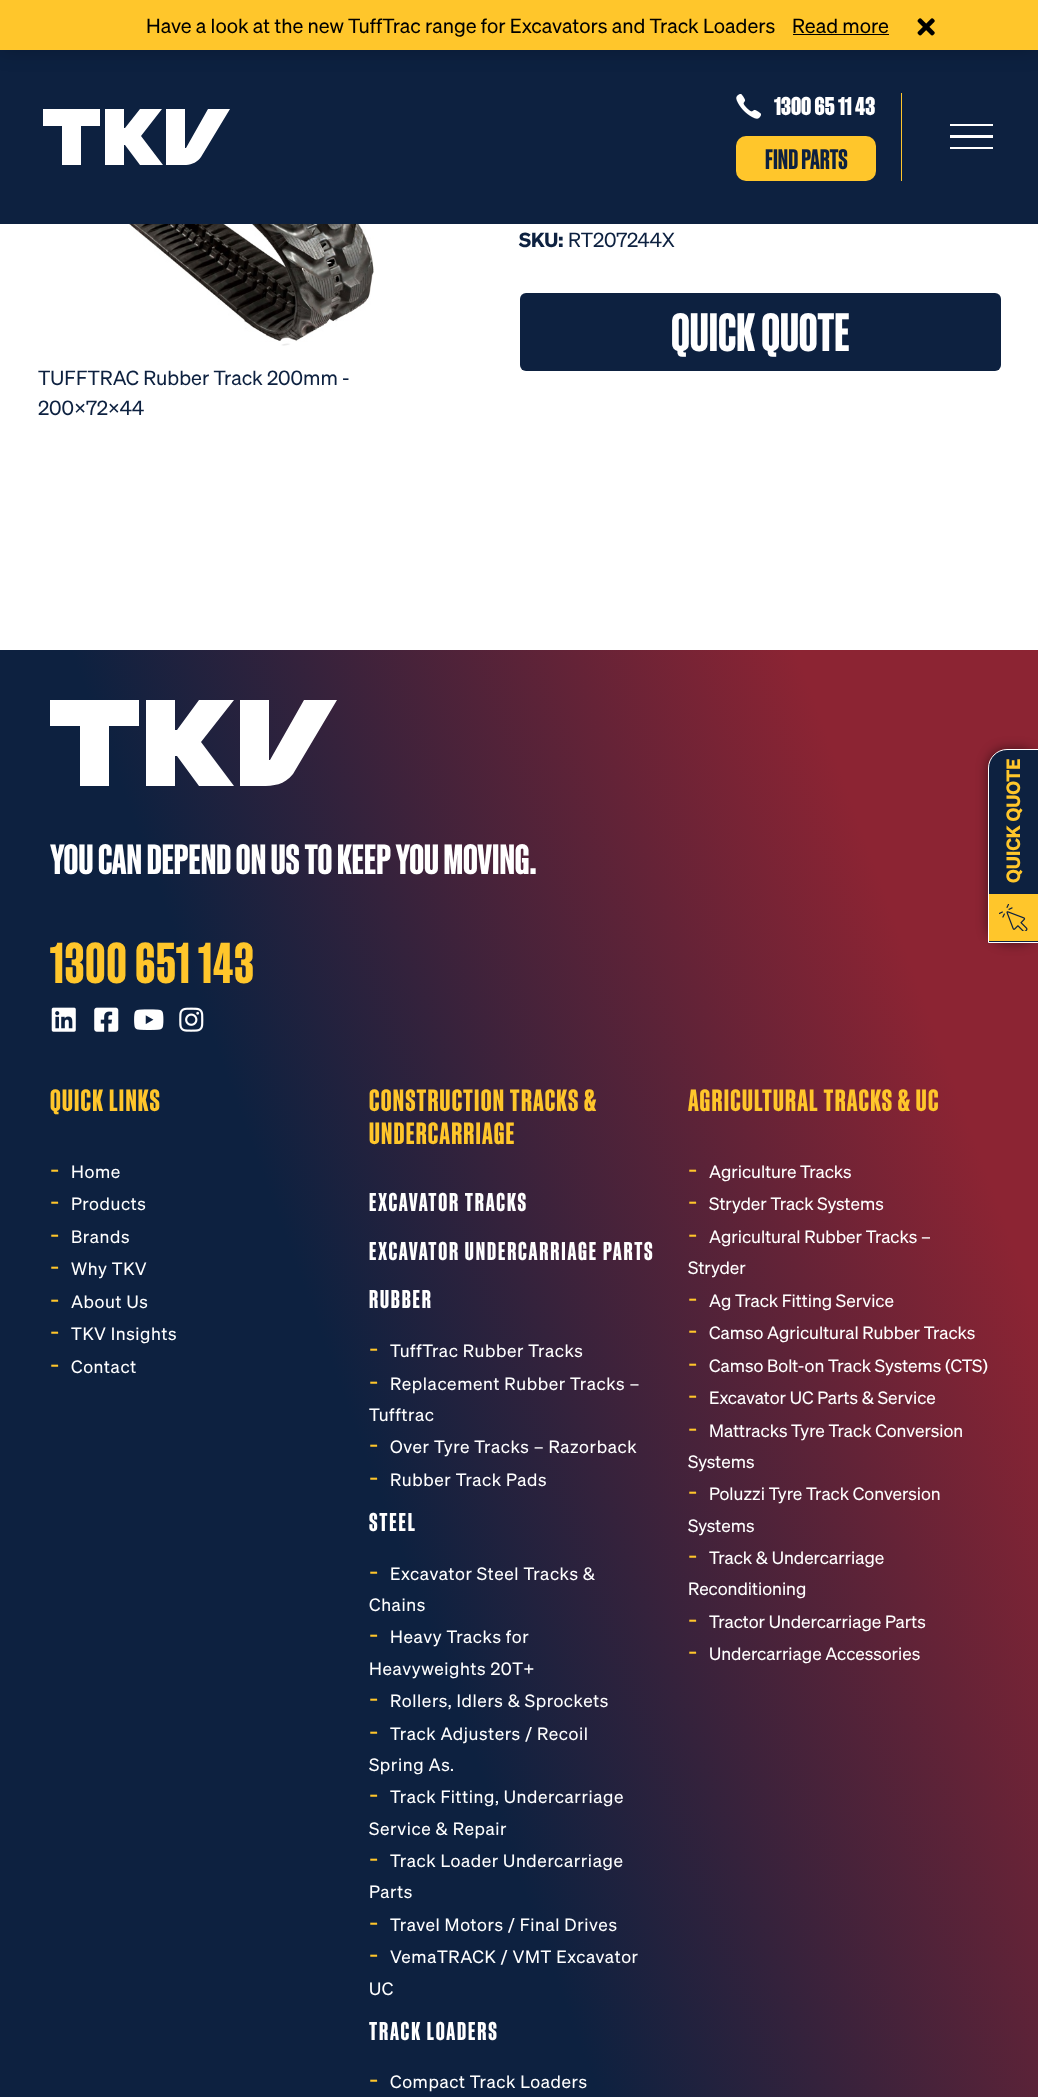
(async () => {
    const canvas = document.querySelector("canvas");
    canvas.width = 1038;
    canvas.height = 2097;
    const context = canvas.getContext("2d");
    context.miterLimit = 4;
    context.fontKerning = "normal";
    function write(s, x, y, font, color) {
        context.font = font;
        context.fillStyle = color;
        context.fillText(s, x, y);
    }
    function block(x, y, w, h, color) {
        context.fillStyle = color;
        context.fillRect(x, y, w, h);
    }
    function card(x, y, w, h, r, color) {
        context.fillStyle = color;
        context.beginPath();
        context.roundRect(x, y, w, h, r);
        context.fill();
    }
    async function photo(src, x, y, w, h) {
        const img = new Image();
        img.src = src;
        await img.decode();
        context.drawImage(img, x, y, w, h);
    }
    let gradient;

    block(0, 0, 1038, 2097, "rgb(255, 255, 255)");
    block(0, 50, 1038, 174, "rgb(13, 33, 64)");
    context.fillStyle = "rgba(0, 0, 0, 0.2)";
    context.filter = "blur(10px)";
    context.beginPath();
    context.rect(0, 1, 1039, 50);
    context.fill();
    context.filter = "none";
    block(0, 0, 1038, 50, "rgb(255, 198, 43)");
    write("Have a look at the new TuffTrac range for Excavators and Track Loaders", 146, 33, "20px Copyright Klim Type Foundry", "rgb(0, 0, 0)");
    write("Read more", 792, 33, "20px Copyright Klim Type Foundry", "rgb(0, 0, 0)");
    block(793, 34, 96, 1, "rgb(0, 0, 0)");
    await photo("media/1.png", 917, 18, 18, 18);
    write("SKU:", 519, 247, "bold 20px Copyright Klim Type Foundry", "rgb(13, 33, 64)");
    write("RT207244X", 568, 247, "20px Copyright Klim Type Foundry", "rgb(13, 33, 64)");
    card(520, 293, 481, 78, 6, "rgb(13, 33, 64)");
    write("QUICK QUOTE", 671, 351, "bold 52.5px 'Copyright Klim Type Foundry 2'", "rgb(255, 255, 255)");
    await photo("media/2.png", 39, 224, 335, 122);
    write("TUFFTRAC Rubber Track 200mm -", 38, 385, "20px Copyright Klim Type Foundry", "rgb(13, 33, 64)");
    write("200x72x44", 38, 415, "20px Copyright Klim Type Foundry", "rgb(13, 33, 64)");
    context.save();
    context.beginPath();
    context.rect(43, 109, 187, 56);
    context.clip();
    context.fillStyle = "rgb(255, 255, 255)";
    context.beginPath();
    context.moveTo(208, 109);
    context.lineTo(186, 148);
    context.lineTo(185, 148);
    context.lineTo(185, 109);
    context.lineTo(166, 109);
    context.lineTo(166, 165);
    context.bezierCurveTo(177, 165, 194, 168, 201, 157);
    context.lineTo(230, 109);
    context.closePath();
    context.moveTo(43, 126);
    context.lineTo(43, 109);
    context.lineTo(100, 109);
    context.lineTo(100, 126);
    context.lineTo(81, 126);
    context.lineTo(81, 165);
    context.lineTo(62, 165);
    context.lineTo(62, 126);
    context.closePath();
    context.moveTo(163, 165);
    context.lineTo(141, 136);
    context.lineTo(162, 109);
    context.lineTo(140, 109);
    context.lineTo(125, 128);
    context.lineTo(124, 128);
    context.lineTo(124, 109);
    context.lineTo(105, 109);
    context.lineTo(105, 165);
    context.lineTo(124, 165);
    context.lineTo(124, 145);
    context.lineTo(125, 145);
    context.lineTo(140, 165);
    context.closePath();
    context.fill("evenodd");
    context.restore();
    block(901, 93, 1, 88, "rgb(255, 198, 43)");
    await photo("media/3.png", 736, 94, 25, 25);
    write("1300 65 11 43", 774, 115, "800 25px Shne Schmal", "rgb(255, 255, 255)");
    card(736, 136, 140, 45, 10, "rgb(255, 198, 43)");
    write("FIND PARTS", 765, 169, "bold 27.5px 'Copyright Klim Type Foundry 2'", "rgb(13, 33, 64)");
    block(950, 124, 43, 2, "rgb(255, 255, 255)");
    block(950, 135, 43, 3, "rgb(255, 255, 255)");
    block(950, 147, 43, 2, "rgb(255, 255, 255)");
    gradient = context.createLinearGradient(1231, 1178, -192, 1697);
    gradient.addColorStop(0.15, "rgb(140, 36, 51)");
    gradient.addColorStop(0.6, "rgb(13, 33, 64)");
    context.fillStyle = gradient;
    context.fillRect(0, 650, 1038, 1447);
    context.fillStyle = "rgba(0, 0, 0, 0.5)";
    context.filter = "blur(6px)";
    context.beginPath();
    context.roundRect(988, 749, 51, 194, 19);
    context.fill();
    context.filter = "none";
    context.fillStyle = "rgb(13, 33, 64)";
    context.beginPath();
    context.moveTo(1007, 749.5);
    context.lineTo(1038.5, 749.5);
    context.lineTo(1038.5, 942.5);
    context.lineTo(988.5, 942.5);
    context.lineTo(988.5, 768);
    context.bezierCurveTo(988.5, 758, 997, 749.5, 1007, 749.5);
    context.closePath();
    context.fill();
    context.strokeStyle = "rgb(255, 255, 255)";
    context.stroke();
    context.font = "bold 18.75px Copyright Klim Type Foundry";
    context.fillStyle = "rgb(255, 198, 43)";
    context.save();
    context.translate(1020, 883);
    context.rotate(-90 * Math.PI / 180);
    context.fillText("QUICK QUOTE", 0, 0);
    context.restore();
    block(989, 894, 49, 47, "rgb(255, 198, 43)");
    await photo("media/4.png", 999, 904, 29, 27);
    context.fillStyle = "rgb(255, 255, 255)";
    context.beginPath();
    context.moveTo(139, 700);
    context.lineTo(50, 700);
    context.lineTo(50, 726);
    context.lineTo(80, 726);
    context.lineTo(80, 786);
    context.lineTo(109, 786);
    context.lineTo(109, 726);
    context.lineTo(139, 726);
    context.closePath();
    context.moveTo(304, 700);
    context.lineTo(337, 700);
    context.lineTo(293, 774);
    context.bezierCurveTo(284, 785, 274, 786, 261, 786);
    context.lineTo(240, 786);
    context.lineTo(240, 700);
    context.lineTo(269, 700);
    context.lineTo(269, 760);
    context.lineTo(270, 760);
    context.closePath();
    context.moveTo(234, 786);
    context.lineTo(199, 786);
    context.lineTo(177, 756);
    context.lineTo(175, 756);
    context.lineTo(175, 786);
    context.lineTo(146, 786);
    context.lineTo(146, 700);
    context.lineTo(175, 700);
    context.lineTo(175, 730);
    context.lineTo(177, 730);
    context.lineTo(199, 700);
    context.lineTo(234, 700);
    context.lineTo(201, 742);
    context.closePath();
    context.fill("evenodd");
    write("YOU CAN DEPEND ON US TO KEEP YOU MOVING.", 50, 874, "bold 41.25px 'Copyright Klim Type Foundry 2'", "rgb(255, 255, 255)");
    context.letterSpacing = "1.1px";
    write("1300 651 143", 50, 983, "bold 56px 'Copyright Klim Type Foundry 2'", "rgb(255, 198, 43)");
    await photo("media/5.png", 51, 1007, 25, 25);
    await photo("media/6.png", 94, 1007, 25, 25);
    await photo("media/7.png", 134, 1009, 30, 21);
    await photo("media/8.png", 179, 1007, 25, 25);
    context.letterSpacing = "1.25px";
    write("QUICK LINKS", 50, 1111, "bold 30px 'Copyright Klim Type Foundry 2'", "rgb(255, 198, 43)");
    context.letterSpacing = "0px";
    write("-", 50, 1178, "25px Copyright Klim Type Foundry", "rgb(255, 198, 43)");
    context.letterSpacing = "0.6px";
    write("Home", 71, 1178, "17.5px Copyright Klim Type Foundry", "rgb(255, 255, 255)");
    context.letterSpacing = "0px";
    write("-", 50, 1210, "25px Copyright Klim Type Foundry", "rgb(255, 198, 43)");
    context.letterSpacing = "0.6px";
    write("Products", 71, 1210, "17.5px Copyright Klim Type Foundry", "rgb(255, 255, 255)");
    context.letterSpacing = "0px";
    write("-", 50, 1243, "25px Copyright Klim Type Foundry", "rgb(255, 198, 43)");
    context.letterSpacing = "0.6px";
    write("Brands", 71, 1243, "17.5px Copyright Klim Type Foundry", "rgb(255, 255, 255)");
    context.letterSpacing = "0px";
    write("-", 50, 1275, "25px Copyright Klim Type Foundry", "rgb(255, 198, 43)");
    context.letterSpacing = "0.6px";
    write("Why TKV", 71, 1275, "17.5px Copyright Klim Type Foundry", "rgb(255, 255, 255)");
    context.letterSpacing = "0px";
    write("-", 50, 1308, "25px Copyright Klim Type Foundry", "rgb(255, 198, 43)");
    context.letterSpacing = "0.6px";
    write("About Us", 71, 1308, "17.5px Copyright Klim Type Foundry", "rgb(255, 255, 255)");
    context.letterSpacing = "0px";
    write("-", 50, 1340, "25px Copyright Klim Type Foundry", "rgb(255, 198, 43)");
    context.letterSpacing = "0.6px";
    write("TKV Insights", 71, 1340, "17.5px Copyright Klim Type Foundry", "rgb(255, 255, 255)");
    context.letterSpacing = "0px";
    write("-", 50, 1373, "25px Copyright Klim Type Foundry", "rgb(255, 198, 43)");
    context.letterSpacing = "0.6px";
    write("Contact", 71, 1373, "17.5px Copyright Klim Type Foundry", "rgb(255, 255, 255)");
    context.letterSpacing = "1.25px";
    write("CONSTRUCTION TRACKS &", 369, 1111, "bold 30px 'Copyright Klim Type Foundry 2'", "rgb(255, 198, 43)");
    write("UNDERCARRIAGE", 369, 1144, "bold 30px 'Copyright Klim Type Foundry 2'", "rgb(255, 198, 43)");
    context.letterSpacing = "1.9px";
    write("EXCAVATOR TRACKS", 369, 1211, "bold 25px 'Copyright Klim Type Foundry 2'", "rgb(255, 255, 255)");
    write("EXCAVATOR UNDERCARRIAGE PARTS", 369, 1260, "bold 25px 'Copyright Klim Type Foundry 2'", "rgb(255, 255, 255)");
    write("RUBBER", 369, 1308, "bold 25px 'Copyright Klim Type Foundry 2'", "rgb(255, 255, 255)");
    context.letterSpacing = "0px";
    write("-", 369, 1357, "25px Copyright Klim Type Foundry", "rgb(255, 198, 43)");
    context.letterSpacing = "0.6px";
    write("TuffTrac Rubber Tracks", 390, 1357, "17.5px Copyright Klim Type Foundry", "rgb(255, 255, 255)");
    context.letterSpacing = "0px";
    write("-", 369, 1390, "25px Copyright Klim Type Foundry", "rgb(255, 198, 43)");
    context.letterSpacing = "0.6px";
    write("Replacement Rubber Tracks –", 390, 1390, "17.5px Copyright Klim Type Foundry", "rgb(255, 255, 255)");
    write("Tufftrac", 369, 1421, "17.5px Copyright Klim Type Foundry", "rgb(255, 255, 255)");
    context.letterSpacing = "0px";
    write("-", 369, 1453, "25px Copyright Klim Type Foundry", "rgb(255, 198, 43)");
    context.letterSpacing = "0.6px";
    write("Over Tyre Tracks – Razorback", 390, 1453, "17.5px Copyright Klim Type Foundry", "rgb(255, 255, 255)");
    context.letterSpacing = "0px";
    write("-", 369, 1486, "25px Copyright Klim Type Foundry", "rgb(255, 198, 43)");
    context.letterSpacing = "0.6px";
    write("Rubber Track Pads", 390, 1486, "17.5px Copyright Klim Type Foundry", "rgb(255, 255, 255)");
    context.letterSpacing = "1.9px";
    write("STEEL", 369, 1531, "bold 25px 'Copyright Klim Type Foundry 2'", "rgb(255, 255, 255)");
    context.letterSpacing = "0px";
    write("-", 369, 1580, "25px Copyright Klim Type Foundry", "rgb(255, 198, 43)");
    context.letterSpacing = "0.6px";
    write("Excavator Steel Tracks &", 390, 1580, "17.5px Copyright Klim Type Foundry", "rgb(255, 255, 255)");
    write("Chains", 369, 1611, "17.5px Copyright Klim Type Foundry", "rgb(255, 255, 255)");
    context.letterSpacing = "0px";
    write("-", 369, 1643, "25px Copyright Klim Type Foundry", "rgb(255, 198, 43)");
    context.letterSpacing = "0.6px";
    write("Heavy Tracks for", 390, 1643, "17.5px Copyright Klim Type Foundry", "rgb(255, 255, 255)");
    write("Heavyweights 20T+", 369, 1675, "17.5px Copyright Klim Type Foundry", "rgb(255, 255, 255)");
    context.letterSpacing = "0px";
    write("-", 369, 1707, "25px Copyright Klim Type Foundry", "rgb(255, 198, 43)");
    context.letterSpacing = "0.6px";
    write("Rollers, Idlers & Sprockets", 390, 1707, "17.5px Copyright Klim Type Foundry", "rgb(255, 255, 255)");
    context.letterSpacing = "0px";
    write("-", 369, 1740, "25px Copyright Klim Type Foundry", "rgb(255, 198, 43)");
    context.letterSpacing = "0.6px";
    write("Track Adjusters / Recoil", 390, 1740, "17.5px Copyright Klim Type Foundry", "rgb(255, 255, 255)");
    write("Spring As.", 369, 1771, "17.5px Copyright Klim Type Foundry", "rgb(255, 255, 255)");
    context.letterSpacing = "0px";
    write("-", 369, 1803, "25px Copyright Klim Type Foundry", "rgb(255, 198, 43)");
    context.letterSpacing = "0.6px";
    write("Track Fitting, Undercarriage", 390, 1803, "17.5px Copyright Klim Type Foundry", "rgb(255, 255, 255)");
    write("Service & Repair", 369, 1835, "17.5px Copyright Klim Type Foundry", "rgb(255, 255, 255)");
    context.letterSpacing = "0px";
    write("-", 369, 1867, "25px Copyright Klim Type Foundry", "rgb(255, 198, 43)");
    context.letterSpacing = "0.6px";
    write("Track Loader Undercarriage", 390, 1867, "17.5px Copyright Klim Type Foundry", "rgb(255, 255, 255)");
    write("Parts", 369, 1898, "17.5px Copyright Klim Type Foundry", "rgb(255, 255, 255)");
    context.letterSpacing = "0px";
    write("-", 369, 1931, "25px Copyright Klim Type Foundry", "rgb(255, 198, 43)");
    context.letterSpacing = "0.6px";
    write("Travel Motors / Final Drives", 390, 1931, "17.5px Copyright Klim Type Foundry", "rgb(255, 255, 255)");
    context.letterSpacing = "0px";
    write("-", 369, 1963, "25px Copyright Klim Type Foundry", "rgb(255, 198, 43)");
    context.letterSpacing = "0.6px";
    write("VemaTRACK / VMT Excavator", 390, 1963, "17.5px Copyright Klim Type Foundry", "rgb(255, 255, 255)");
    write("UC", 369, 1995, "17.5px Copyright Klim Type Foundry", "rgb(255, 255, 255)");
    context.letterSpacing = "1.9px";
    write("TRACK LOADERS", 369, 2040, "bold 25px 'Copyright Klim Type Foundry 2'", "rgb(255, 255, 255)");
    context.letterSpacing = "0px";
    write("-", 369, 2088, "25px Copyright Klim Type Foundry", "rgb(255, 198, 43)");
    context.letterSpacing = "0.6px";
    write("Compact Track Loaders", 390, 2088, "17.5px Copyright Klim Type Foundry", "rgb(255, 255, 255)");
    context.letterSpacing = "1.25px";
    write("AGRICULTURAL TRACKS & UC", 688, 1111, "bold 30px 'Copyright Klim Type Foundry 2'", "rgb(255, 198, 43)");
    context.letterSpacing = "0px";
    write("-", 688, 1178, "25px Copyright Klim Type Foundry", "rgb(255, 198, 43)");
    write("Agriculture Tracks", 709, 1178, "17.5px Copyright Klim Type Foundry", "rgb(255, 255, 255)");
    write("-", 688, 1210, "25px Copyright Klim Type Foundry", "rgb(255, 198, 43)");
    write("Stryder Track Systems", 709, 1210, "17.5px Copyright Klim Type Foundry", "rgb(255, 255, 255)");
    write("-", 688, 1243, "25px Copyright Klim Type Foundry", "rgb(255, 198, 43)");
    write("Agricultural Rubber Tracks –", 709, 1243, "17.5px Copyright Klim Type Foundry", "rgb(255, 255, 255)");
    write("Stryder", 688, 1274, "17.5px Copyright Klim Type Foundry", "rgb(255, 255, 255)");
    write("-", 688, 1307, "25px Copyright Klim Type Foundry", "rgb(255, 198, 43)");
    write("Ag Track Fitting Service", 709, 1307, "17.5px Copyright Klim Type Foundry", "rgb(255, 255, 255)");
    write("-", 688, 1339, "25px Copyright Klim Type Foundry", "rgb(255, 198, 43)");
    write("Camso Agricultural Rubber Tracks", 709, 1339, "17.5px Copyright Klim Type Foundry", "rgb(255, 255, 255)");
    write("-", 688, 1372, "25px Copyright Klim Type Foundry", "rgb(255, 198, 43)");
    write("Camso Bolt-on Track Systems (CTS)", 709, 1372, "17.5px Copyright Klim Type Foundry", "rgb(255, 255, 255)");
    write("-", 688, 1404, "25px Copyright Klim Type Foundry", "rgb(255, 198, 43)");
    write("Excavator UC Parts & Service", 709, 1404, "17.5px Copyright Klim Type Foundry", "rgb(255, 255, 255)");
    write("-", 688, 1437, "25px Copyright Klim Type Foundry", "rgb(255, 198, 43)");
    write("Mattracks Tyre Track Conversion", 709, 1437, "17.5px Copyright Klim Type Foundry", "rgb(255, 255, 255)");
    write("Systems", 688, 1468, "17.5px Copyright Klim Type Foundry", "rgb(255, 255, 255)");
    write("-", 688, 1500, "25px Copyright Klim Type Foundry", "rgb(255, 198, 43)");
    write("Poluzzi Tyre Track Conversion", 709, 1500, "17.5px Copyright Klim Type Foundry", "rgb(255, 255, 255)");
    write("Systems", 688, 1532, "17.5px Copyright Klim Type Foundry", "rgb(255, 255, 255)");
    write("-", 688, 1564, "25px Copyright Klim Type Foundry", "rgb(255, 198, 43)");
    write("Track & Undercarriage", 709, 1564, "17.5px Copyright Klim Type Foundry", "rgb(255, 255, 255)");
    write("Reconditioning", 688, 1595, "17.5px Copyright Klim Type Foundry", "rgb(255, 255, 255)");
    write("-", 688, 1628, "25px Copyright Klim Type Foundry", "rgb(255, 198, 43)");
    write("Tractor Undercarriage Parts", 709, 1628, "17.5px Copyright Klim Type Foundry", "rgb(255, 255, 255)");
    write("-", 688, 1660, "25px Copyright Klim Type Foundry", "rgb(255, 198, 43)");
    write("Undercarriage Accessories", 709, 1660, "17.5px Copyright Klim Type Foundry", "rgb(255, 255, 255)");
})();
